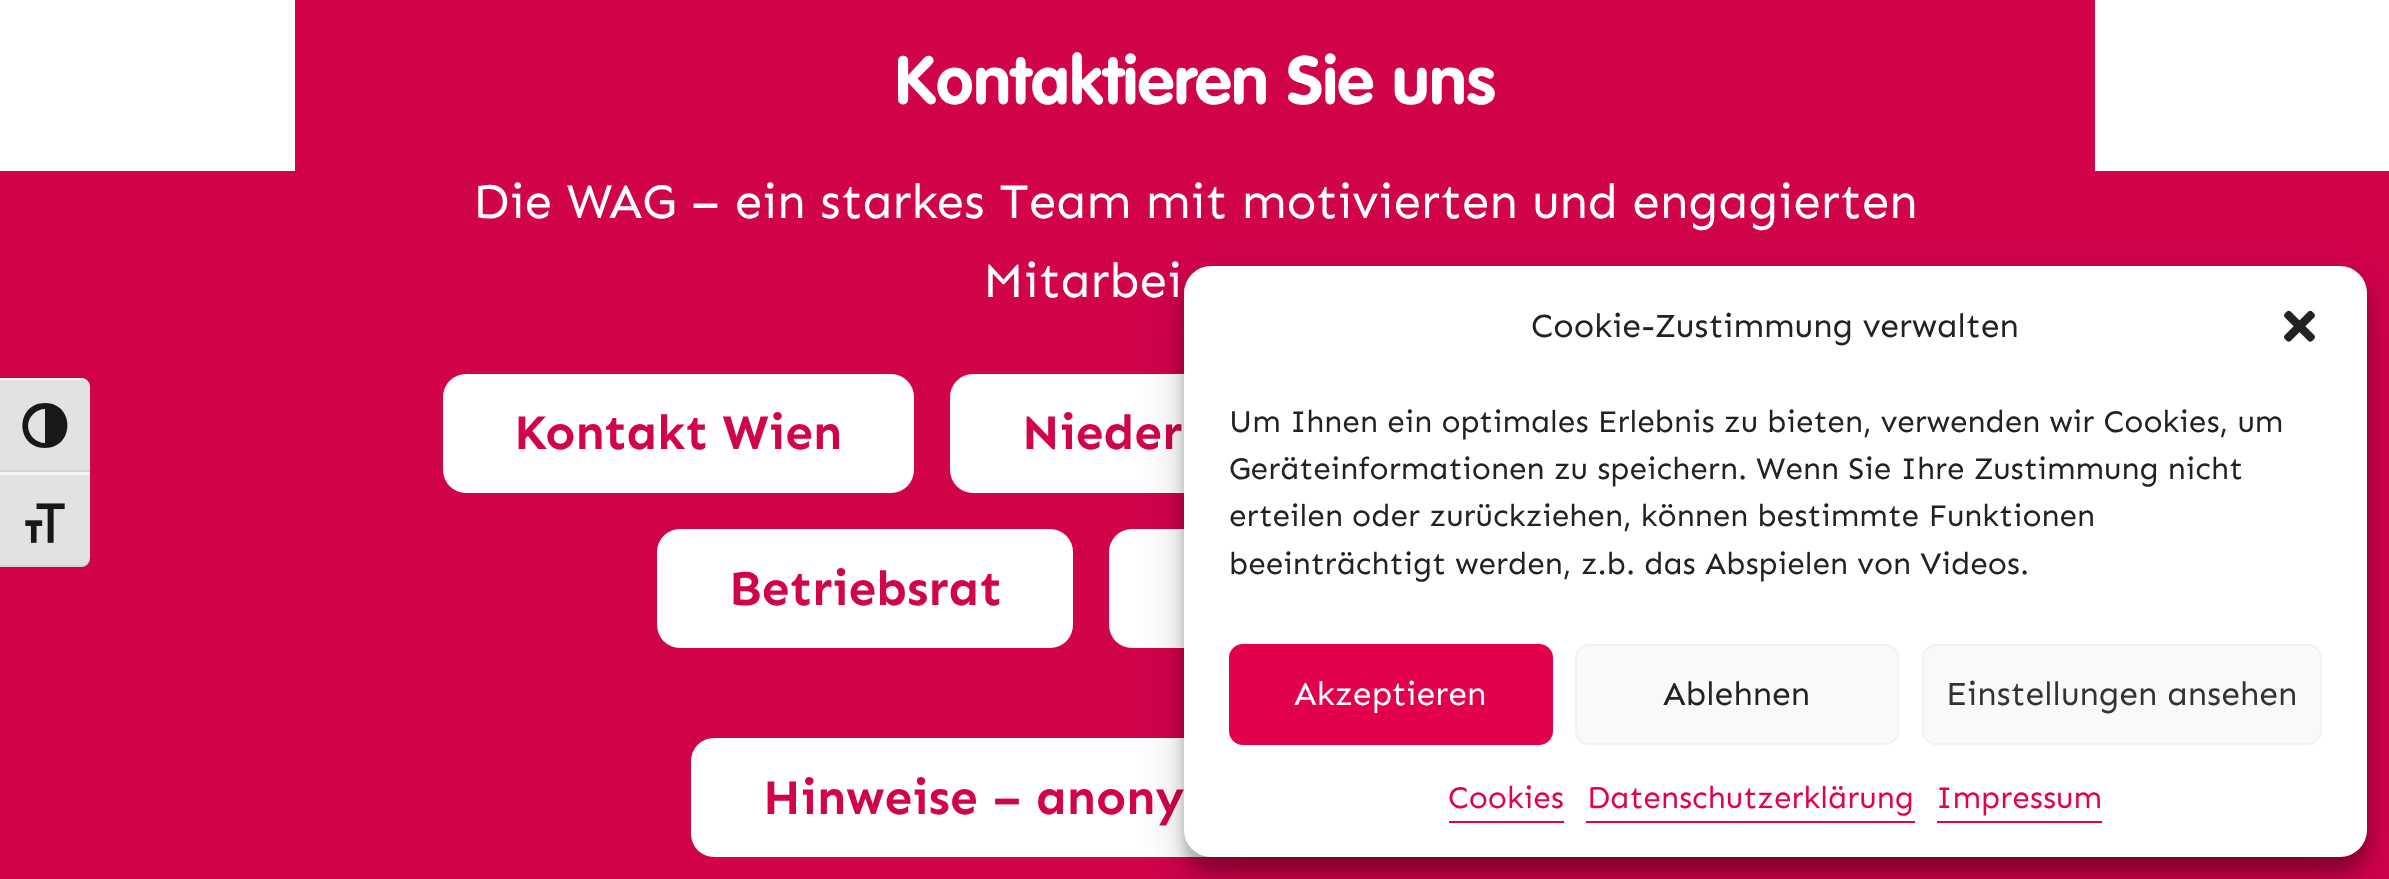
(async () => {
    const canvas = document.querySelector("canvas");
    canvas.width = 2389;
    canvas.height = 879;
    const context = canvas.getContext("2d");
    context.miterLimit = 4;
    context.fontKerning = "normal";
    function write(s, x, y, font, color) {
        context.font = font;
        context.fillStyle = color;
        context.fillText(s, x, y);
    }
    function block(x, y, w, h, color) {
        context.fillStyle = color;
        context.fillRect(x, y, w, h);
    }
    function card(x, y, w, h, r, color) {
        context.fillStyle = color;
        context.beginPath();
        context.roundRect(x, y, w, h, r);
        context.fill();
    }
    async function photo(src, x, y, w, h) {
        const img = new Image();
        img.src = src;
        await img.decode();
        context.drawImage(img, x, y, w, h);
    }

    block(0, 0, 2389, 879, "rgb(255, 255, 255)");
    block(295, 0, 1800, 171, "rgb(208, 3, 75)");
    write("Kontaktieren Sie uns", 895, 104, "bold 67.25px 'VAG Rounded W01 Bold'", "rgb(255, 255, 255)");
    block(0, 171, 2389, 708, "rgb(208, 3, 75)");
    write("Die WAG – ein starkes Team mit motivierten und engagierten", 473, 218, "49.5px Sen", "rgb(255, 255, 255)");
    write("Mitarbei", 983, 297, "49.5px Sen", "rgb(255, 255, 255)");
    card(443, 374, 471, 119, 23, "rgb(255, 255, 255)");
    write("Kontakt Wien", 514, 449, "bold 49.5px Sen", "rgb(208, 3, 75)");
    card(950, 374, 544, 119, 23, "rgb(255, 255, 255)");
    write("Nieder", 1022, 449, "bold 49.5px Sen", "rgb(208, 3, 75)");
    card(657, 529, 416, 119, 23, "rgb(255, 255, 255)");
    write("Betriebsrat", 729, 605, "bold 49.5px Sen", "rgb(208, 3, 75)");
    card(1109, 529, 624, 119, 23, "rgb(255, 255, 255)");
    card(691, 738, 1008, 119, 23, "rgb(255, 255, 255)");
    write("Hinweise – anony", 763, 814, "bold 49.5px Sen", "rgb(208, 3, 75)");
    context.fillStyle = "rgb(226, 226, 226)";
    context.beginPath();
    context.roundRect(0, 378, 90, 95, [0, 9, 0, 0]);
    context.fill();
    context.fillStyle = "rgb(245, 245, 245)";
    context.beginPath();
    context.moveTo(0, 378);
    context.lineTo(0, 380);
    context.lineTo(81, 380);
    context.bezierCurveTo(86, 380, 90, 383, 90, 387);
    context.bezierCurveTo(90, 382, 86, 378, 81, 378);
    context.closePath();
    context.fill();
    block(0, 470, 90, 2, "rgb(210, 210, 210)");
    context.fillStyle = "rgb(24, 24, 24)";
    context.beginPath();
    context.moveTo(45, 403);
    context.bezierCurveTo(15, 403, 15, 448, 45, 448);
    context.bezierCurveTo(75, 448, 75, 403, 45, 403);
    context.closePath();
    context.moveTo(28, 426);
    context.bezierCurveTo(28, 417, 36, 409, 45, 409);
    context.lineTo(45, 443);
    context.bezierCurveTo(36, 443, 28, 435, 28, 426);
    context.closePath();
    context.fill();
    context.fillStyle = "rgb(226, 226, 226)";
    context.beginPath();
    context.roundRect(0, 473, 90, 94, [0, 0, 9, 0]);
    context.fill();
    block(0, 472, 90, 3, "rgb(245, 245, 245)");
    context.fillStyle = "rgb(210, 210, 210)";
    context.beginPath();
    context.moveTo(0, 565);
    context.lineTo(0, 567);
    context.lineTo(81, 567);
    context.bezierCurveTo(86, 567, 90, 563, 90, 558);
    context.bezierCurveTo(90, 562, 86, 565, 81, 565);
    context.closePath();
    context.fill();
    await photo("media/1.png", 25, 503, 40, 40);
    context.fillStyle = "rgba(0, 0, 0, 0.23)";
    context.filter = "blur(7px)";
    context.beginPath();
    context.roundRect(1184, 279, 1183, 592, 27);
    context.fill();
    context.filter = "none";
    context.fillStyle = "rgba(0, 0, 0, 0.19)";
    context.filter = "blur(22.5px)";
    context.beginPath();
    context.roundRect(1184, 288, 1183, 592, 27);
    context.fill();
    context.filter = "none";
    card(1184, 266, 1183, 591, 27, "rgb(255, 255, 255)");
    write("Cookie-Zustimmung verwalten", 1531, 337, "33.75px Sen", "rgb(34, 34, 34)");
    await photo("media/2.png", 2284, 310, 31, 32);
    write("Um Ihnen ein optimales Erlebnis zu bieten, verwenden wir Cookies, um", 1229, 432, "31.5px Sen", "rgb(34, 34, 34)");
    write("Geräteinformationen zu speichern. Wenn Sie Ihre Zustimmung nicht", 1229, 479, "31.5px Sen", "rgb(34, 34, 34)");
    write("erteilen oder zurückziehen, können bestimmte Funktionen", 1229, 526, "31.5px Sen", "rgb(34, 34, 34)");
    write("beeinträchtigt werden, z.b. das Abspielen von Videos.", 1229, 574, "31.5px Sen", "rgb(34, 34, 34)");
    context.fillStyle = "rgb(227, 0, 79)";
    context.beginPath();
    context.roundRect(1230, 645, 322, 99, 13);
    context.fill();
    context.strokeStyle = "rgb(227, 0, 79)";
    context.lineWidth = 2;
    context.stroke();
    write("Akzeptieren", 1294, 705, "33.75px Sen", "rgb(255, 255, 255)");
    context.fillStyle = "rgb(249, 249, 249)";
    context.beginPath();
    context.roundRect(1576, 645, 322, 99, 13);
    context.fill();
    context.strokeStyle = "rgb(242, 242, 242)";
    context.stroke();
    write("Ablehnen", 1663, 705, "33.75px Sen", "rgb(34, 34, 34)");
    context.fillStyle = "rgb(249, 249, 249)";
    context.beginPath();
    context.roundRect(1923, 645, 398, 99, 13);
    context.fill();
    context.stroke();
    write("Einstellungen ansehen", 1946, 705, "33.75px Sen", "rgb(51, 51, 51)");
    write("Cookies", 1448, 808, "31.5px Sen", "rgb(227, 0, 79)");
    block(1449, 821, 115, 2, "rgb(227, 0, 79)");
    write("Datenschutzerklärung", 1587, 808, "31.5px Sen", "rgb(227, 0, 79)");
    block(1586, 821, 329, 2, "rgb(227, 0, 79)");
    write("Impressum", 1936, 808, "31.5px Sen", "rgb(227, 0, 79)");
    block(1937, 821, 165, 2, "rgb(227, 0, 79)");
})();
